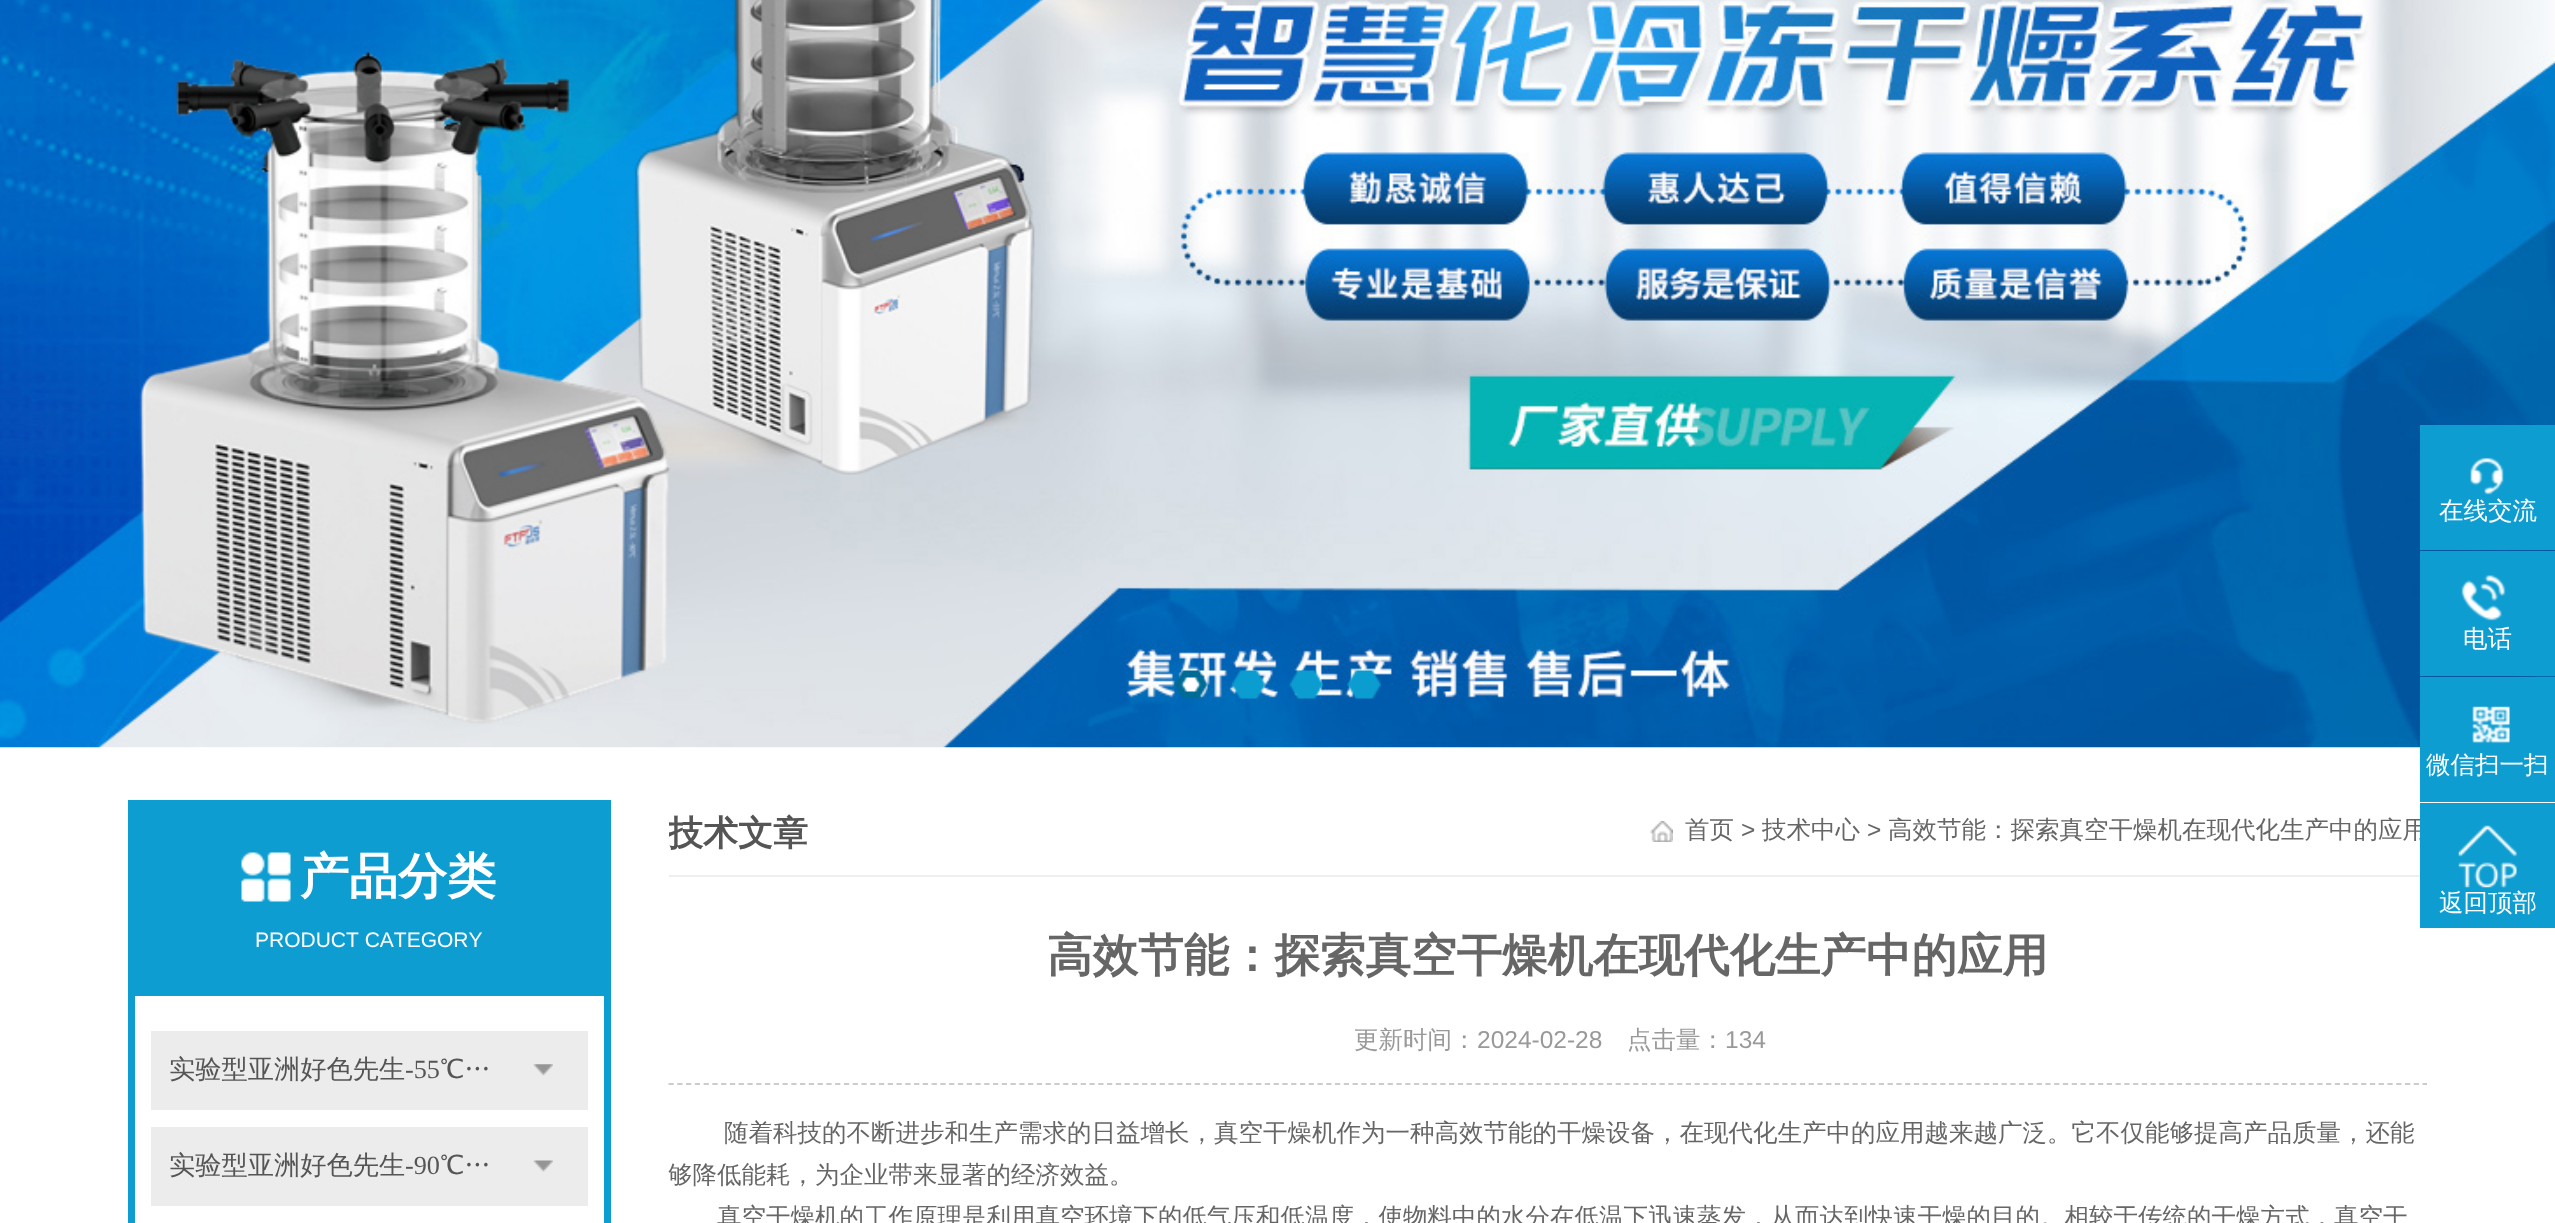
(async () => {
    const canvas = document.querySelector("canvas");
    canvas.width = 2555;
    canvas.height = 1223;
    const context = canvas.getContext("2d");
    context.miterLimit = 4;
    context.fontKerning = "none";
    function write(s, x, y, font, color) {
        context.font = font;
        context.fillStyle = color;
        context.fillText(s, x, y);
    }
    function block(x, y, w, h, color) {
        context.fillStyle = color;
        context.fillRect(x, y, w, h);
    }
    async function photo(src, x, y, w, h) {
        const img = new Image();
        img.src = src;
        await img.decode();
        context.drawImage(img, x, y, w, h);
    }

    block(0, 0, 2555, 1223, "rgb(255, 255, 255)");
    await photo("media/1.png", 0, 0, 2555, 748);
    await photo("media/2.png", 1174, 670, 34, 29);
    await photo("media/3.png", 1232, 670, 34, 29);
    await photo("media/4.png", 1289, 670, 34, 29);
    await photo("media/5.png", 1347, 670, 34, 29);
    block(2420, 425, 135, 125, "rgb(13, 157, 209)");
    await photo("media/6.png", 2470, 457, 34, 38);
    write("在线交流", 2439, 519, "500 24.5px WenQuanYi Zen Hei", "rgb(255, 255, 255)");
    block(2420, 551, 135, 125, "rgb(13, 157, 209)");
    await photo("media/7.png", 2461, 575, 45, 46);
    write("电话", 2463, 647, "500 24.5px WenQuanYi Zen Hei", "rgb(255, 255, 255)");
    block(2420, 677, 135, 125, "rgb(13, 157, 209)");
    await photo("media/8.png", 2472, 706, 38, 38);
    write("微信扫一扫", 2426, 773, "500 24.5px WenQuanYi Zen Hei", "rgb(255, 255, 255)");
    block(669, 875, 1758, 2, "rgb(239, 239, 239)");
    write("高效节能：探索真空干燥机在现代化生产中的应用", 1888, 838, "500 24.5px WenQuanYi Zen Hei", "rgb(102, 102, 102)");
    block(2420, 803, 135, 125, "rgb(13, 157, 209)");
    await photo("media/9.png", 2458, 825, 59, 63);
    write("返回顶部", 2439, 911, "500 24.5px WenQuanYi Zen Hei", "rgb(255, 255, 255)");
    block(128, 800, 483, 196, "rgb(13, 157, 209)");
    await photo("media/10.png", 241, 852, 50, 50);
    write("产品分类", 300, 893, "bold 49px WenQuanYi Zen Hei", "rgb(255, 255, 255)");
    write("PRODUCT CATEGORY", 255, 947, "21px Liberation Sans", "rgb(255, 255, 255)");
    block(604, 996, 7, 227, "rgb(13, 157, 209)");
    block(128, 996, 7, 227, "rgb(13, 157, 209)");
    block(151, 1031, 437, 79, "rgb(236, 236, 236)");
    write("实验型亚洲好色先生", 169, 1078, "500 26.25px WenQuanYi Zen Hei", "rgb(85, 85, 85)");
    write("-55", 405, 1078, "26.25px Liberation Serif", "rgb(85, 85, 85)");
    write("℃…", 440, 1078, "500 26.25px WenQuanYi Zen Hei", "rgb(85, 85, 85)");
    await photo("media/11.png", 533, 1064, 20, 12);
    block(151, 1127, 437, 79, "rgb(236, 236, 236)");
    write("实验型亚洲好色先生", 169, 1174, "500 26.25px WenQuanYi Zen Hei", "rgb(85, 85, 85)");
    write("-90", 405, 1174, "26.25px Liberation Serif", "rgb(85, 85, 85)");
    write("℃…", 440, 1174, "500 26.25px WenQuanYi Zen Hei", "rgb(85, 85, 85)");
    await photo("media/12.png", 533, 1160, 20, 12);
    context.save();
    context.beginPath();
    context.rect(669, 800, 1758, 75);
    context.clip();
    write("技术文章", 668, 845, "bold 35px WenQuanYi Zen Hei", "rgb(85, 85, 85)");
    context.restore();
    await photo("media/13.png", 1650, 821, 23, 21);
    write("首页", 1685, 838, "500 24.5px WenQuanYi Zen Hei", "rgb(102, 102, 102)");
    write(">", 1741, 838, "24.5px Liberation Sans", "rgb(102, 102, 102)");
    write("技术中心", 1762, 838, "500 24.5px WenQuanYi Zen Hei", "rgb(102, 102, 102)");
    write(">", 1867, 838, "24.5px Liberation Sans", "rgb(102, 102, 102)");
    write("高效节能：探索真空干燥机在现代化生产中的应用", 1047, 971, "bold 45.5px WenQuanYi Zen Hei", "rgb(102, 102, 102)");
    context.beginPath();
    context.moveTo(668.5, 1084);
    context.lineTo(2427, 1084);
    context.strokeStyle = "rgb(204, 204, 204)";
    context.lineWidth = 1.8;
    context.setLineDash([5.25, 3.52]);
    context.stroke();
    write("更新时间：", 1354, 1048, "500 24.5px WenQuanYi Zen Hei", "rgb(153, 153, 153)");
    write("2024-02-28", 1477, 1048, "24.5px Liberation Sans", "rgb(153, 153, 153)");
    write("点击量：", 1627, 1048, "500 24.5px WenQuanYi Zen Hei", "rgb(153, 153, 153)");
    write("134", 1725, 1048, "24.5px Liberation Sans", "rgb(153, 153, 153)");
    write("随着科技的不断进步和生产需求的日益增长，真空干燥机作为一种高效节能的干燥设备，在现代化生产中的应用越来越广泛。它不仅能够提高产品质量，还能", 724, 1141, "500 24.5px WenQuanYi Zen Hei", "rgb(102, 102, 102)");
    write("够降低能耗，为企业带来显著的经济效益。", 668, 1183, "500 24.5px WenQuanYi Zen Hei", "rgb(102, 102, 102)");
    write("真空干燥机的工作原理是利用真空环境下的低气压和低温度，使物料中的水分在低温下迅速蒸发，从而达到快速干燥的目的。相较于传统的干燥方式，真空干", 717, 1225, "500 24.5px WenQuanYi Zen Hei", "rgb(102, 102, 102)");
})();
